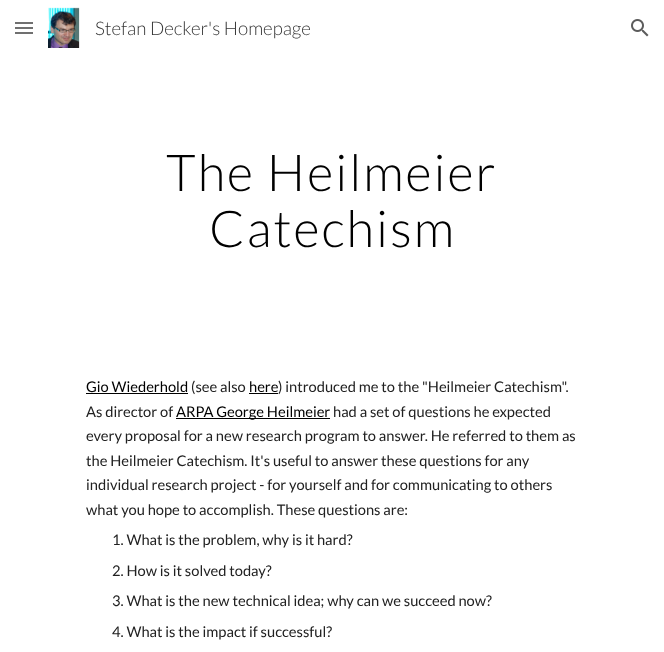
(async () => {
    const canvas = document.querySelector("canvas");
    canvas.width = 664;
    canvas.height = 652;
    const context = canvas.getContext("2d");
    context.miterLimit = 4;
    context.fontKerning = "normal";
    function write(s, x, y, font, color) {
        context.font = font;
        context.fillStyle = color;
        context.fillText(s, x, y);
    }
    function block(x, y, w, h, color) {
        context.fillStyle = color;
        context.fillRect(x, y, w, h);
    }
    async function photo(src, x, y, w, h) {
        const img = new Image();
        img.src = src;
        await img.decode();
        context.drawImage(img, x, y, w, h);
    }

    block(0, 0, 664, 652, "rgb(255, 255, 255)");
    block(15, 22, 18, 2, "rgb(112, 112, 112)");
    block(15, 27, 18, 2, "rgb(112, 112, 112)");
    block(15, 32, 18, 2, "rgb(112, 112, 112)");
    await photo("media/1.png", 48, 7, 32, 41);
    write("Stefan Decker's Homepage", 95, 35, "300 18.75px Lato", "rgb(51, 51, 51)");
    await photo("media/2.png", 631, 19, 18, 18);
    context.letterSpacing = "2px";
    write("The Heilmeier", 166, 191, "300 50.75px Lato", "rgb(0, 0, 0)");
    write("Catechism", 209, 247, "300 50.75px Lato", "rgb(0, 0, 0)");
    context.letterSpacing = "0px";
    write("Gio Wiederhold", 86, 392, "14.7px Lato", "rgb(0, 0, 0)");
    block(86, 393, 102, 1, "rgb(0, 0, 0)");
    write("(see also", 191, 392, "14.7px Lato", "rgb(33, 33, 33)");
    write("here", 249, 392, "14.7px Lato", "rgb(0, 0, 0)");
    block(249, 393, 29, 1, "rgb(0, 0, 0)");
    write(") introduced me to the \"Heilmeier Catechism\".", 278, 392, "14.7px Lato", "rgb(33, 33, 33)");
    write("As director of", 86, 417, "14.7px Lato", "rgb(33, 33, 33)");
    block(176, 418, 154, 1, "rgb(0, 0, 0)");
    write("ARPA George Heilmeier", 176, 417, "14.7px Lato", "rgb(0, 0, 0)");
    write("had a set of questions he expected", 333, 417, "14.7px Lato", "rgb(33, 33, 33)");
    write("every proposal for a new research program to answer. He referred to them as", 86, 441, "14.7px Lato", "rgb(33, 33, 33)");
    write("the Heilmeier Catechism. It's useful to answer these questions for any", 86, 466, "14.7px Lato", "rgb(33, 33, 33)");
    write("individual research project - for yourself and for communicating to others", 86, 490, "14.7px Lato", "rgb(33, 33, 33)");
    write("what you hope to accomplish. These questions are:", 86, 515, "14.7px Lato", "rgb(33, 33, 33)");
    write("1. What is the problem, why is it hard?", 112, 545, "14.7px Lato", "rgb(33, 33, 33)");
    write("2. How is it solved today?", 112, 576, "14.7px Lato", "rgb(33, 33, 33)");
    write("3. What is the new technical idea; why can we succeed now?", 112, 606, "14.7px Lato", "rgb(33, 33, 33)");
    write("4. What is the impact if successful?", 112, 637, "14.7px Lato", "rgb(33, 33, 33)");
})();
